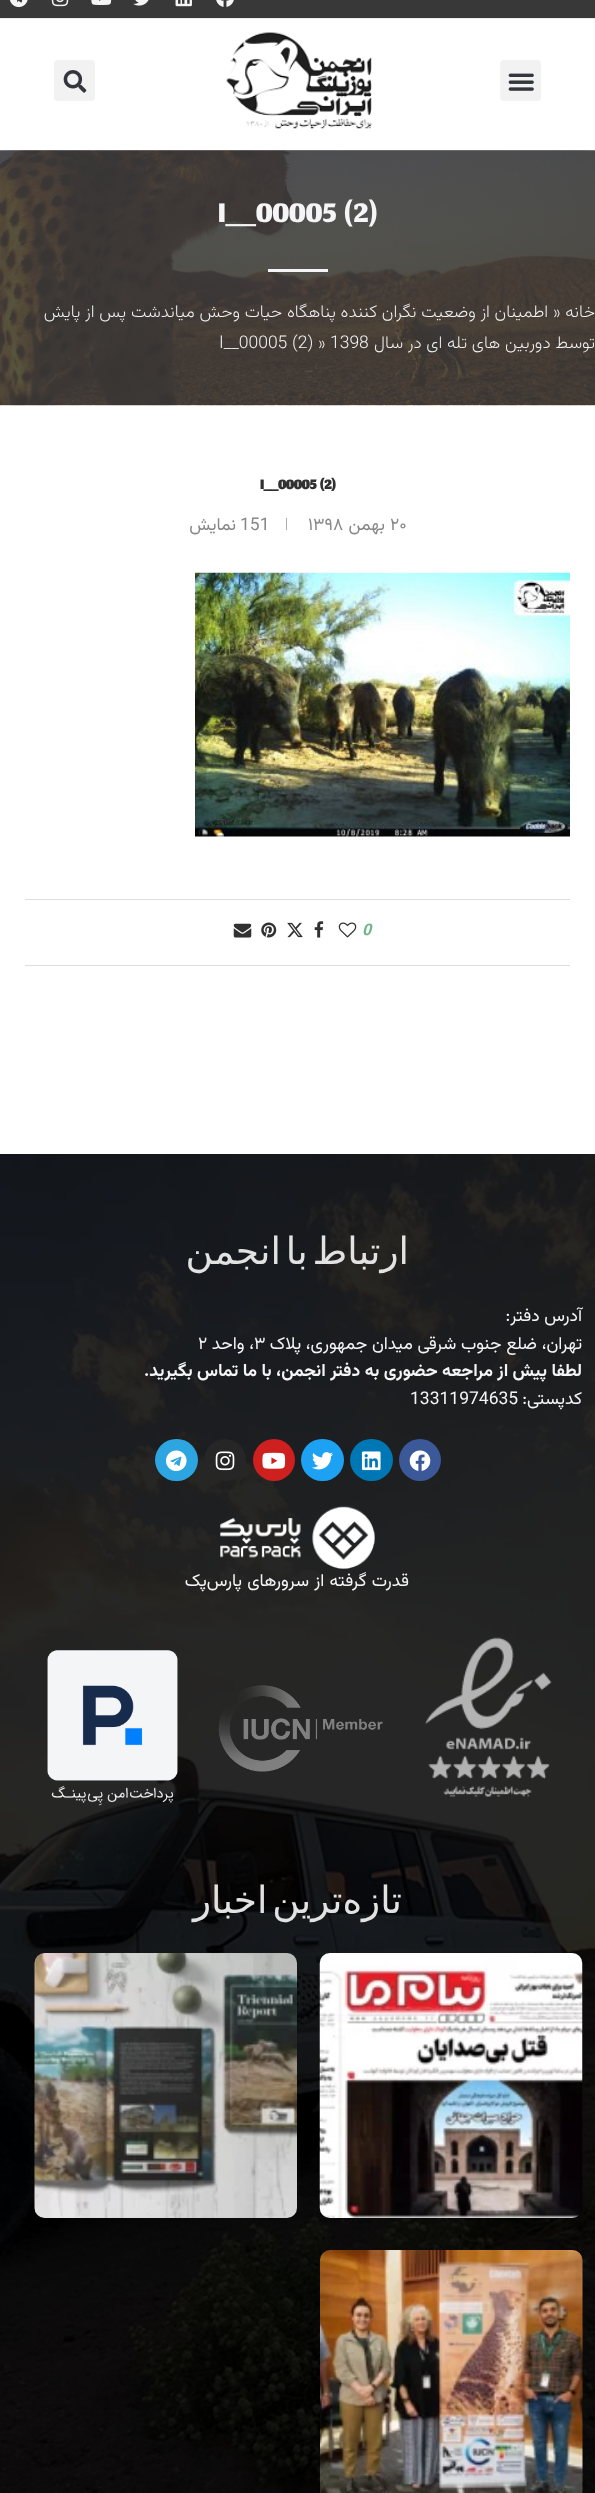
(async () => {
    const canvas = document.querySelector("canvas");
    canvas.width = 595;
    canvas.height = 2493;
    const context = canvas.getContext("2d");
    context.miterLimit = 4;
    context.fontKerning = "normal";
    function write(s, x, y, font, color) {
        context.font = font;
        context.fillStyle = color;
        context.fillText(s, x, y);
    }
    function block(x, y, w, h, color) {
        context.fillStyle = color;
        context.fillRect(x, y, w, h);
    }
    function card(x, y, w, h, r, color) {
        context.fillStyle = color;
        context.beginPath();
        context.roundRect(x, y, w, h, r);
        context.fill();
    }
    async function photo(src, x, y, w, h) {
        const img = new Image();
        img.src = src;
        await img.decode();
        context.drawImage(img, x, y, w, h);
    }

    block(0, 0, 595, 2493, "rgb(255, 255, 255)");
    block(0, 0, 595, 18, "rgb(56, 56, 56)");
    block(0, 18, 595, 1, "rgb(234, 234, 234)");
    await photo("media/1.png", 216, 0, 18, 7);
    await photo("media/2.png", 175, 0, 17, 7);
    await photo("media/3.png", 133, 0, 16, 6);
    await photo("media/4.png", 91, 0, 21, 5);
    await photo("media/5.png", 51, 0, 18, 7);
    await photo("media/6.png", 10, 0, 18, 8);
    context.save();
    context.beginPath();
    context.rect(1, 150, 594, 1);
    context.clip();
    context.fillStyle = "rgba(48, 48, 48, 0.5)";
    context.filter = "blur(4.5px)";
    context.beginPath();
    context.rect(8, 35, 580, 116);
    context.fill();
    context.filter = "none";
    context.restore();
    card(500, 60, 41, 41, 4, "rgb(242, 242, 242)");
    await photo("media/7.png", 508, 73, 26, 18);
    await photo("media/8.png", 226, 32, 146, 97);
    card(54, 60, 41, 41, 4, "rgb(242, 242, 242)");
    await photo("media/9.png", 63, 70, 24, 23);
    await photo("media/10.png", 0, 150, 595, 256);
    write("I__00005 (2)", 218, 222, "47.5px Jomhuria", "rgb(245, 245, 247)");
    block(268, 269, 60, 3, "rgb(245, 245, 247)");
    context.direction = "rtl";
    write("خانه", 595, 317, "200 17.5px Vazirmatn", "rgb(245, 245, 247)");
    context.direction = "ltr";
    write("»", 553, 317, "200 17.5px Vazirmatn", "rgb(245, 245, 247)");
    context.direction = "rtl";
    write("اطمینان از وضعیت نگران کننده پناهگاه حیات وحش میاندشت پس از پایش", 548, 317, "200 17.5px Vazirmatn", "rgb(245, 245, 247)");
    write("توسط دوربین های تله ای در سال", 595, 348, "200 17.5px Vazirmatn", "rgb(245, 245, 247)");
    context.direction = "ltr";
    write("1398", 330, 348, "200 17.5px Vazirmatn", "rgb(245, 245, 247)");
    write("»", 318, 348, "200 17.5px Vazirmatn", "rgb(245, 245, 247)");
    write("I__00005 (2)", 219, 348, "200 17.5px Vazirmatn", "rgb(245, 245, 247)");
    write("I__00005 (2)", 260, 489, "bold 22.5px Jomhuria", "rgb(49, 49, 49)");
    write("۲۰", 390, 530, "17.5px Vazirmatn", "rgb(136, 136, 136)");
    context.direction = "rtl";
    write("بهمن", 385, 530, "17.5px Vazirmatn", "rgb(136, 136, 136)");
    context.direction = "ltr";
    write("۱۳۹۸", 308, 530, "17.5px Vazirmatn", "rgb(136, 136, 136)");
    block(286, 518, 1, 12, "rgb(172, 172, 172)");
    write("151", 240, 530, "17.5px Vazirmatn", "rgb(136, 136, 136)");
    context.direction = "rtl";
    write("نمایش", 236, 530, "17.5px Vazirmatn", "rgb(136, 136, 136)");
    await photo("media/11.png", 195, 572, 375, 265);
    block(25, 899, 545, 1, "rgb(222, 222, 222)");
    context.direction = "ltr";
    write("0", 362, 935, "italic bold 16px Vazirmatn", "rgb(110, 180, 140)");
    await photo("media/12.png", 338, 922, 19, 16);
    await photo("media/13.png", 314, 921, 10, 17);
    await photo("media/14.png", 287, 922, 16, 16);
    await photo("media/15.png", 261, 922, 16, 16);
    await photo("media/16.png", 233, 923, 19, 15);
    block(25, 965, 545, 1, "rgb(222, 222, 222)");
    await photo("media/17.png", 0, 1154, 595, 1339);
    context.wordSpacing = "-7px";
    context.direction = "rtl";
    write("ارتباط با انجمن", 409, 1264, "37.5px DejaVu Sans", "rgb(226, 226, 226)");
    context.wordSpacing = "0px";
    write("آدرس دفتر:", 582, 1321, "17.5px Vazirmatn", "rgb(245, 245, 247)");
    write("تهران، ضلع جنوب شرقی میدان جمهوری، پلاک", 582, 1349, "17.5px Vazirmatn", "rgb(245, 245, 247)");
    context.direction = "ltr";
    write("۳", 254, 1349, "17.5px Vazirmatn", "rgb(245, 245, 247)");
    context.direction = "rtl";
    write("، واحد", 254, 1349, "17.5px Vazirmatn", "rgb(245, 245, 247)");
    context.direction = "ltr";
    write("۲", 198, 1349, "17.5px Vazirmatn", "rgb(245, 245, 247)");
    context.direction = "rtl";
    write("لطفا پیش از مراجعه حضوری به دفتر انجمن، با ما تماس بگیرید.", 582, 1376, "bold 17.5px Vazirmatn", "rgb(245, 245, 247)");
    write("کدپستی:", 582, 1404, "17.5px Vazirmatn", "rgb(245, 245, 247)");
    context.direction = "ltr";
    write("13311974635", 410, 1404, "17.5px Vazirmatn", "rgb(245, 245, 247)");
    context.fillStyle = "rgb(59, 89, 152)";
    context.beginPath();
    context.arc(420, 1460, 21, 0, Math.PI * 2);
    context.fill();
    await photo("media/18.png", 409, 1450, 22, 21);
    card(350, 1439, 43, 42, 21, "rgb(0, 119, 181)");
    await photo("media/19.png", 361, 1451, 20, 20);
    card(301, 1439, 43, 42, 21, "rgb(29, 161, 242)");
    await photo("media/20.png", 312, 1452, 21, 18);
    context.fillStyle = "rgb(205, 32, 31)";
    context.beginPath();
    context.arc(274, 1460, 21, 0, Math.PI * 2);
    context.fill();
    await photo("media/21.png", 262, 1452, 24, 17);
    context.fillStyle = "rgb(38, 38, 38)";
    context.beginPath();
    context.arc(225, 1460, 21, 0, Math.PI * 2);
    context.fill();
    await photo("media/22.png", 215, 1451, 20, 20);
    card(155, 1439, 43, 42, 21, "rgb(44, 165, 224)");
    await photo("media/23.png", 165, 1450, 22, 22);
    await photo("media/24.png", 220, 1506, 155, 63);
    context.wordSpacing = "0.5px";
    context.direction = "rtl";
    write("قدرت گرفته از سرور‌های پارس‌پک", 409, 1586, "17.5px Vazirmatn", "rgb(245, 245, 247)");
    await photo("media/25.png", 425, 1637, 127, 160);
    await photo("media/26.png", 218, 1685, 165, 87);
    await photo("media/27.png", 47, 1650, 131, 156);
    context.wordSpacing = "-7px";
    write("تازه‌ترین اخبار", 402, 1913, "37.5px DejaVu Sans", "rgb(226, 226, 226)");
    await photo("media/28.png", 319, 1953, 264, 265);
    await photo("media/29.png", 34, 1953, 263, 265);
    await photo("media/30.png", 320, 2250, 263, 243);
})();
